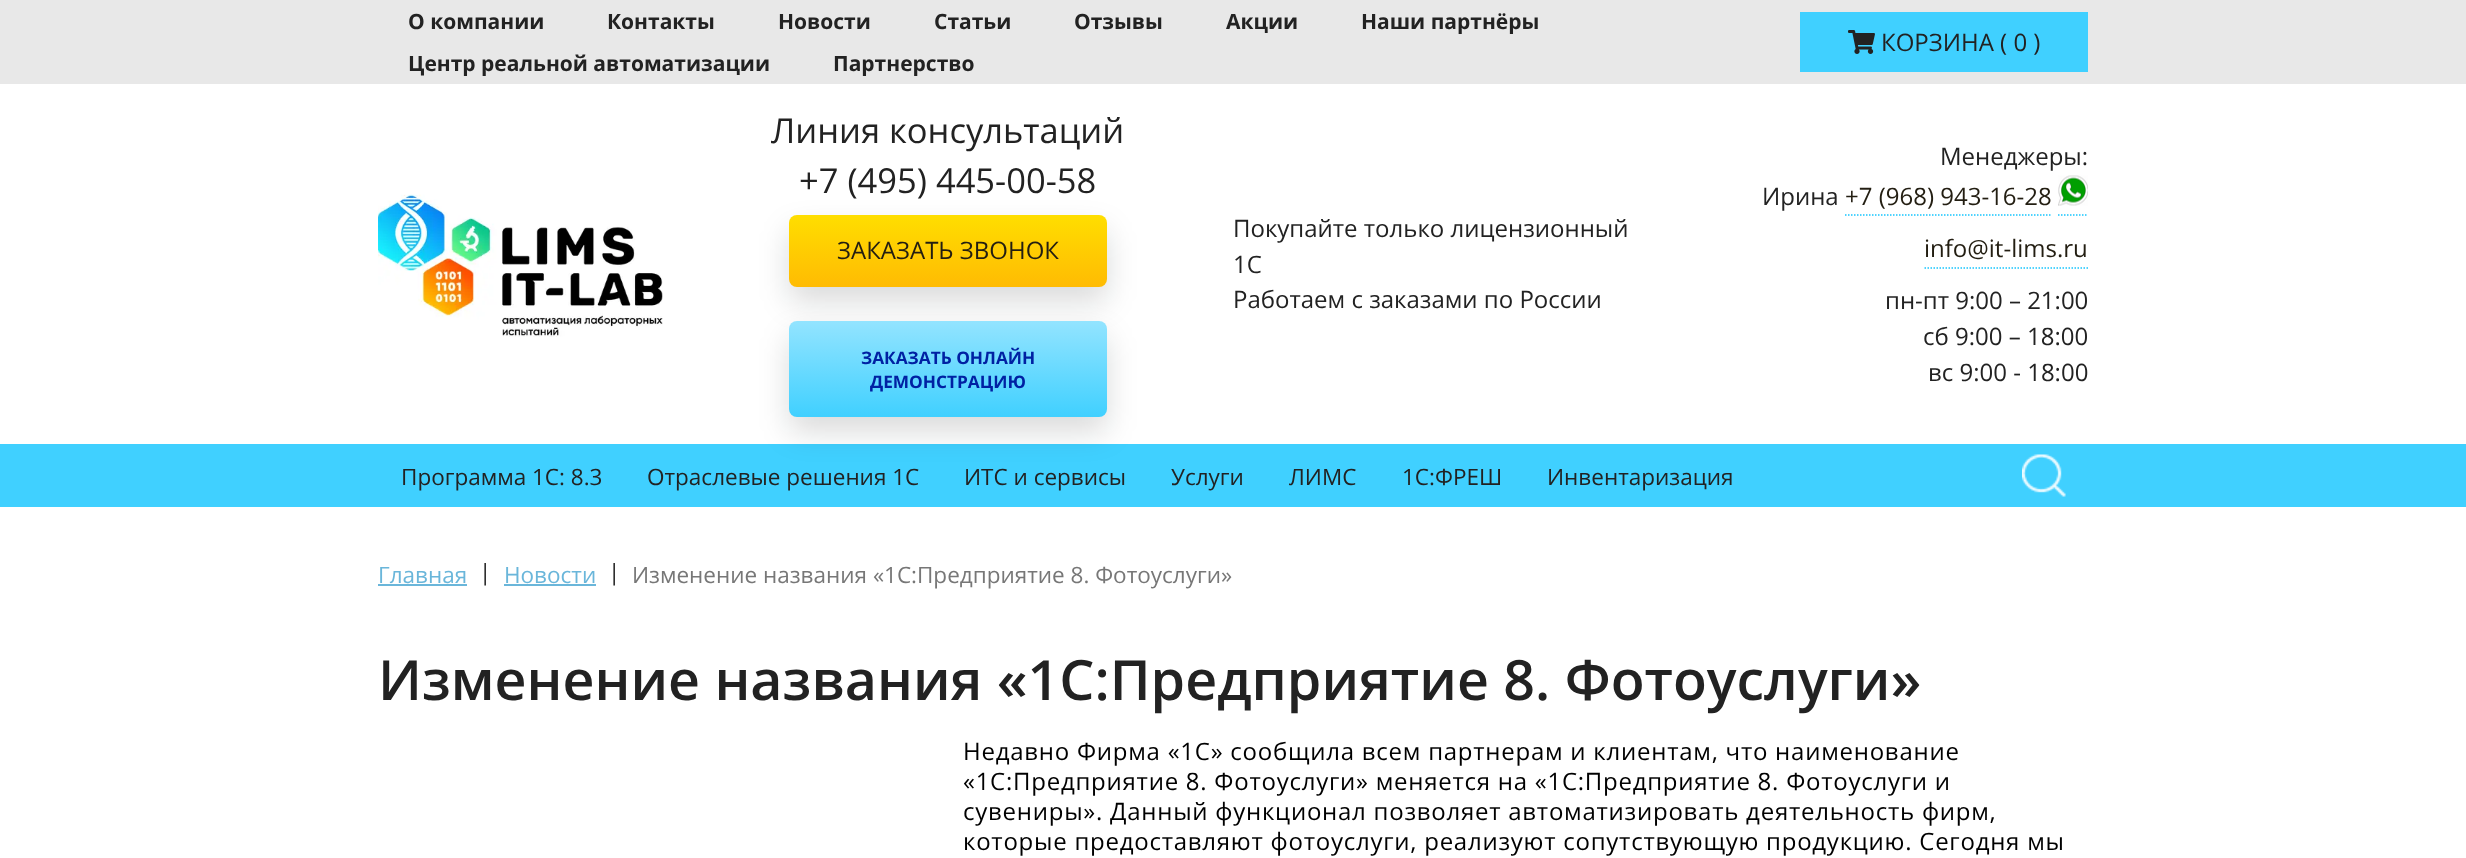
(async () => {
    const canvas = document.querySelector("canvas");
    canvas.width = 2466;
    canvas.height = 858;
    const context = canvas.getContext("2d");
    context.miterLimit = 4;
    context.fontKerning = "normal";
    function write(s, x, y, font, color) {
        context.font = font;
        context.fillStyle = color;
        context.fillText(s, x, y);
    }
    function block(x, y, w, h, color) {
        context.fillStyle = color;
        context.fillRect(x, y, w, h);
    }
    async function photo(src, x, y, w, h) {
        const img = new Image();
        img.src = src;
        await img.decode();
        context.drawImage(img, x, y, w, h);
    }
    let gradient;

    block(0, 0, 2466, 858, "rgb(255, 255, 255)");
    block(0, 0, 2466, 84, "rgb(232, 232, 232)");
    write("О компании", 408, 29, "bold 21px Open Sans", "rgb(34, 34, 34)");
    write("Контакты", 607, 29, "bold 21px Open Sans", "rgb(34, 34, 34)");
    write("Новости", 778, 29, "bold 21px Open Sans", "rgb(34, 34, 34)");
    write("Статьи", 934, 29, "bold 21px Open Sans", "rgb(34, 34, 34)");
    write("Отзывы", 1074, 29, "bold 21px Open Sans", "rgb(34, 34, 34)");
    write("Акции", 1226, 29, "bold 21px Open Sans", "rgb(34, 34, 34)");
    write("Наши партнёры", 1361, 29, "bold 21px Open Sans", "rgb(34, 34, 34)");
    write("Центр реальной автоматизации", 408, 71, "bold 21px Open Sans", "rgb(34, 34, 34)");
    write("Партнерство", 833, 71, "bold 21px Open Sans", "rgb(34, 34, 34)");
    block(1800, 12, 288, 60, "rgb(64, 208, 255)");
    await photo("media/1.png", 1848, 30, 27, 24);
    write("КОРЗИНА ( 0 )", 1881, 51, "24px Open Sans", "rgb(34, 34, 34)");
    await photo("media/2.png", 378, 194, 285, 143);
    write("Линия консультаций", 771, 143, "34.5px Open Sans", "rgb(34, 34, 34)");
    write("+7 (495) 445-00-58", 799, 193, "34.5px Open Sans", "rgb(34, 34, 34)");
    context.fillStyle = "rgba(10, 12, 12, 0.15)";
    context.filter = "blur(15px)";
    context.beginPath();
    context.roundRect(789, 230, 318, 72, 8);
    context.fill();
    context.filter = "none";
    gradient = context.createLinearGradient(948, 215, 948, 287);
    gradient.addColorStop(0, "rgb(255, 222, 0)");
    gradient.addColorStop(1, "rgb(255, 187, 3)");
    context.fillStyle = gradient;
    context.beginPath();
    context.roundRect(789, 215, 318, 72, 8);
    context.fill();
    write("ЗАКАЗАТЬ ЗВОНОК", 837, 259, "24px Open Sans", "rgb(35, 30, 18)");
    block(0, 444, 2466, 63, "rgb(64, 208, 255)");
    context.fillStyle = "rgba(10, 12, 12, 0.15)";
    context.filter = "blur(15px)";
    context.beginPath();
    context.roundRect(789, 336, 318, 96, 8);
    context.fill();
    context.filter = "none";
    gradient = context.createLinearGradient(948, 321, 948, 417);
    gradient.addColorStop(0, "rgb(147, 228, 255)");
    gradient.addColorStop(1, "rgb(64, 208, 255)");
    context.fillStyle = gradient;
    context.beginPath();
    context.roundRect(789, 321, 318, 96, 8);
    context.fill();
    write("ЗАКАЗАТЬ ОНЛАЙН", 861, 364, "bold 17.25px Open Sans", "rgb(0, 33, 163)");
    write("ДЕМОНСТРАЦИЮ", 870, 388, "bold 17.25px Open Sans", "rgb(0, 33, 163)");
    write("Покупайте только лицензионный", 1233, 237, "24px Open Sans", "rgb(34, 34, 34)");
    write("1С", 1233, 273, "24px Open Sans", "rgb(34, 34, 34)");
    write("Работаем с заказами по России", 1233, 308, "24px Open Sans", "rgb(34, 34, 34)");
    write("Менеджеры:", 1940, 165, "24px Open Sans", "rgb(34, 34, 34)");
    write("Ирина", 1762, 205, "24px Open Sans", "rgb(34, 34, 34)");
    context.beginPath();
    context.moveTo(1845, 215);
    context.lineTo(2052, 215);
    context.strokeStyle = "rgb(22, 197, 254)";
    context.lineWidth = 1.5;
    context.setLineDash([1.5, 1.5]);
    context.stroke();
    write("+7 (968) 943-16-28", 1845, 205, "24px Open Sans", "rgb(35, 30, 18)");
    context.beginPath();
    context.moveTo(2058, 215);
    context.lineTo(2088, 215);
    context.stroke();
    await photo("media/3.png", 2058, 175, 30, 31);
    context.beginPath();
    context.moveTo(1924.5, 268);
    context.lineTo(2088, 268);
    context.stroke();
    write("info@it-lims.ru", 1924, 257, "24px Open Sans", "rgb(35, 30, 18)");
    write("пн-пт 9:00 – 21:00", 1885, 309, "24px Open Sans", "rgb(34, 34, 34)");
    write("сб 9:00 – 18:00", 1923, 345, "24px Open Sans", "rgb(34, 34, 34)");
    write("вс 9:00 - 18:00", 1928, 381, "24px Open Sans", "rgb(34, 34, 34)");
    write("Программа 1С: 8.3", 401, 485, "22.5px Open Sans", "rgb(34, 34, 34)");
    write("Отраслевые решения 1С", 647, 485, "22.5px Open Sans", "rgb(34, 34, 34)");
    write("ИТС и сервисы", 964, 485, "22.5px Open Sans", "rgb(34, 34, 34)");
    write("Услуги", 1171, 485, "22.5px Open Sans", "rgb(34, 34, 34)");
    write("ЛИМС", 1289, 485, "22.5px Open Sans", "rgb(34, 34, 34)");
    write("1С:ФРЕШ", 1402, 485, "22.5px Open Sans", "rgb(34, 34, 34)");
    write("Инвентаризация", 1547, 485, "22.5px Open Sans", "rgb(34, 34, 34)");
    await photo("media/4.png", 2022, 454, 44, 43);
    write("Главная", 378, 583, "22.5px Open Sans", "rgb(106, 182, 218)");
    block(378, 584, 89, 2, "rgb(106, 182, 218)");
    write("|", 479, 580, "22.5px Open Sans", "rgb(34, 34, 34)");
    write("Новости", 504, 583, "22.5px Open Sans", "rgb(106, 182, 218)");
    block(504, 584, 92, 2, "rgb(106, 182, 218)");
    write("|", 608, 580, "22.5px Open Sans", "rgb(34, 34, 34)");
    write("Изменение названия «1С:Предприятие 8. Фотоуслуги»", 632, 583, "22.5px Open Sans", "rgb(119, 119, 119)");
    write("Изменение названия «1С:Предприятие 8. Фотоуслуги»", 378, 700, "600 55.5px Open Sans", "rgb(34, 34, 34)");
    context.letterSpacing = "0.75px";
    write("Недавно Фирма «1С» сообщила всем партнерам и клиентам, что наименование", 963, 760, "24px Open Sans", "rgb(0, 0, 0)");
    write("«1С:Предприятие 8. Фотоуслуги» меняется на «1С:Предприятие 8. Фотоуслуги и", 963, 790, "24px Open Sans", "rgb(0, 0, 0)");
    write("сувениры». Данный функционал позволяет автоматизировать деятельность фирм,", 963, 820, "24px Open Sans", "rgb(0, 0, 0)");
    write("которые предоставляют фотоуслуги, реализуют сопутствующую продукцию. Сегодня мы", 963, 850, "24px Open Sans", "rgb(0, 0, 0)");
})();
